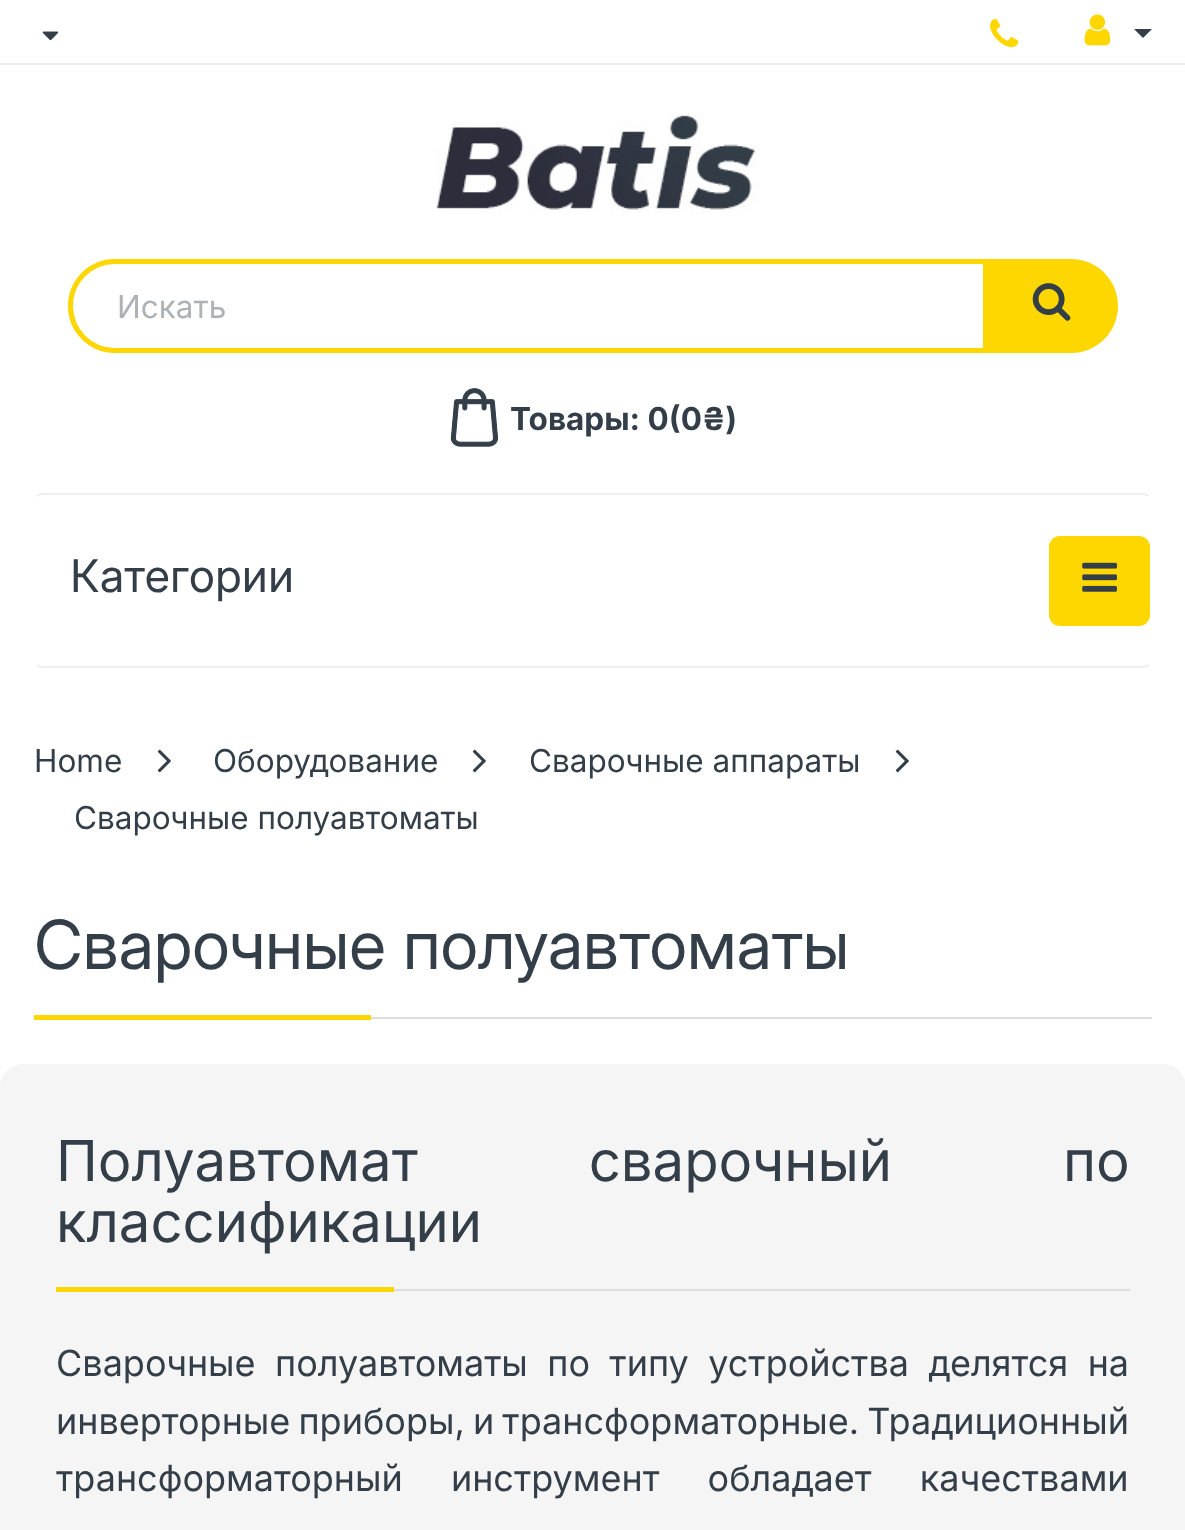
(async () => {
    const canvas = document.querySelector("canvas");
    canvas.width = 1185;
    canvas.height = 1530;
    const context = canvas.getContext("2d");
    context.miterLimit = 4;
    context.fontKerning = "normal";
    function write(s, x, y, font, color) {
        context.font = font;
        context.fillStyle = color;
        context.fillText(s, x, y);
    }
    function block(x, y, w, h, color) {
        context.fillStyle = color;
        context.fillRect(x, y, w, h);
    }
    function card(x, y, w, h, r, color) {
        context.fillStyle = color;
        context.beginPath();
        context.roundRect(x, y, w, h, r);
        context.fill();
    }
    async function photo(src, x, y, w, h) {
        const img = new Image();
        img.src = src;
        await img.decode();
        context.drawImage(img, x, y, w, h);
    }

    block(0, 0, 1185, 1530, "rgb(255, 255, 255)");
    block(0, 63, 1185, 2, "rgb(235, 236, 237)");
    await photo("media/1.png", 42, 31, 17, 10);
    await photo("media/2.png", 990, 19, 29, 29);
    await photo("media/3.png", 1084, 14, 27, 32);
    context.fillStyle = "rgb(51, 62, 72)";
    context.beginPath();
    context.moveTo(1134, 29);
    context.lineTo(1152, 29);
    context.lineTo(1143, 38);
    context.closePath();
    context.fill();
    await photo("media/4.png", 436, 112, 324, 101);
    context.beginPath();
    context.roundRect(70.5, 261.5, 1034, 89, 44.5);
    context.strokeStyle = "rgb(254, 215, 0)";
    context.lineWidth = 5;
    context.stroke();
    write("Искать", 117, 318, "31.5px 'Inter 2'", "rgb(173, 178, 182)");
    context.fillStyle = "rgb(254, 215, 0)";
    context.beginPath();
    context.roundRect(983, 259, 135, 94, [0, 47, 47, 0]);
    context.fill();
    await photo("media/5.png", 1032, 283, 39, 38);
    await photo("media/6.png", 450, 388, 49, 59);
    write("Товары: 0(0₴)", 510, 430, "bold 31.5px Inter", "rgb(51, 62, 72)");
    context.beginPath();
    context.moveTo(37, 496);
    context.bezierCurveTo(38.5, 494.5, 40.5, 494, 43, 494);
    context.lineTo(1143, 494);
    context.bezierCurveTo(1145, 494, 1147, 494.5, 1148.5, 496);
    context.strokeStyle = "rgb(239, 239, 239)";
    context.lineWidth = 2.2;
    context.stroke();
    context.beginPath();
    context.moveTo(1148.5, 665);
    context.bezierCurveTo(1147, 666.5, 1145, 667, 1143, 667);
    context.lineTo(43, 667);
    context.bezierCurveTo(40.5, 667, 38.5, 666.5, 37, 665);
    context.stroke();
    write("Категории", 70, 592, "45px Inter", "rgb(51, 62, 72)");
    card(1049, 536, 101, 90, 11, "rgb(254, 215, 0)");
    await photo("media/7.png", 1082, 562, 35, 30);
    write("Home", 34, 772, "31.5px 'Inter 2'", "rgb(51, 62, 72)");
    await photo("media/8.png", 157, 749, 14, 24);
    write("Оборудование", 213, 772, "31.5px 'Inter 2'", "rgb(51, 62, 72)");
    await photo("media/8.png", 472, 749, 14, 24);
    write("Сварочные аппараты", 529, 772, "31.5px 'Inter 2'", "rgb(51, 62, 72)");
    await photo("media/8.png", 895, 749, 14, 24);
    write("Сварочные полуавтоматы", 74, 829, "31.5px 'Inter 2'", "rgb(51, 62, 72)");
    block(371, 1017, 781, 2, "rgb(221, 221, 221)");
    write("Сварочные полуавтоматы", 34, 969, "67.5px 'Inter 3'", "rgb(51, 62, 72)");
    block(34, 1015, 337, 5, "rgb(254, 215, 0)");
    card(0, 1064, 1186, 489, 23, "rgb(245, 245, 245)");
    block(394, 1289, 736, 2, "rgb(221, 221, 221)");
    context.wordSpacing = "155px";
    write("Полуавтомат сварочный по", 56, 1181, "56.25px 'Inter 2'", "rgb(51, 62, 72)");
    context.wordSpacing = "0px";
    write("классификации", 56, 1242, "56.25px 'Inter 2'", "rgb(51, 62, 72)");
    block(56, 1287, 338, 5, "rgb(254, 215, 0)");
    context.wordSpacing = "9.25px";
    write("Сварочные полуавтоматы по типу устройства делятся на", 56, 1376, "36px 'Inter 2'", "rgb(51, 62, 72)");
    context.wordSpacing = "-2px";
    write("инверторные приборы, и трансформаторные. Традиционный", 56, 1434, "36px 'Inter 2'", "rgb(51, 62, 72)");
    context.wordSpacing = "38px";
    write("трансформаторный инструмент обладает качествами", 56, 1491, "36px 'Inter 2'", "rgb(51, 62, 72)");
})();
